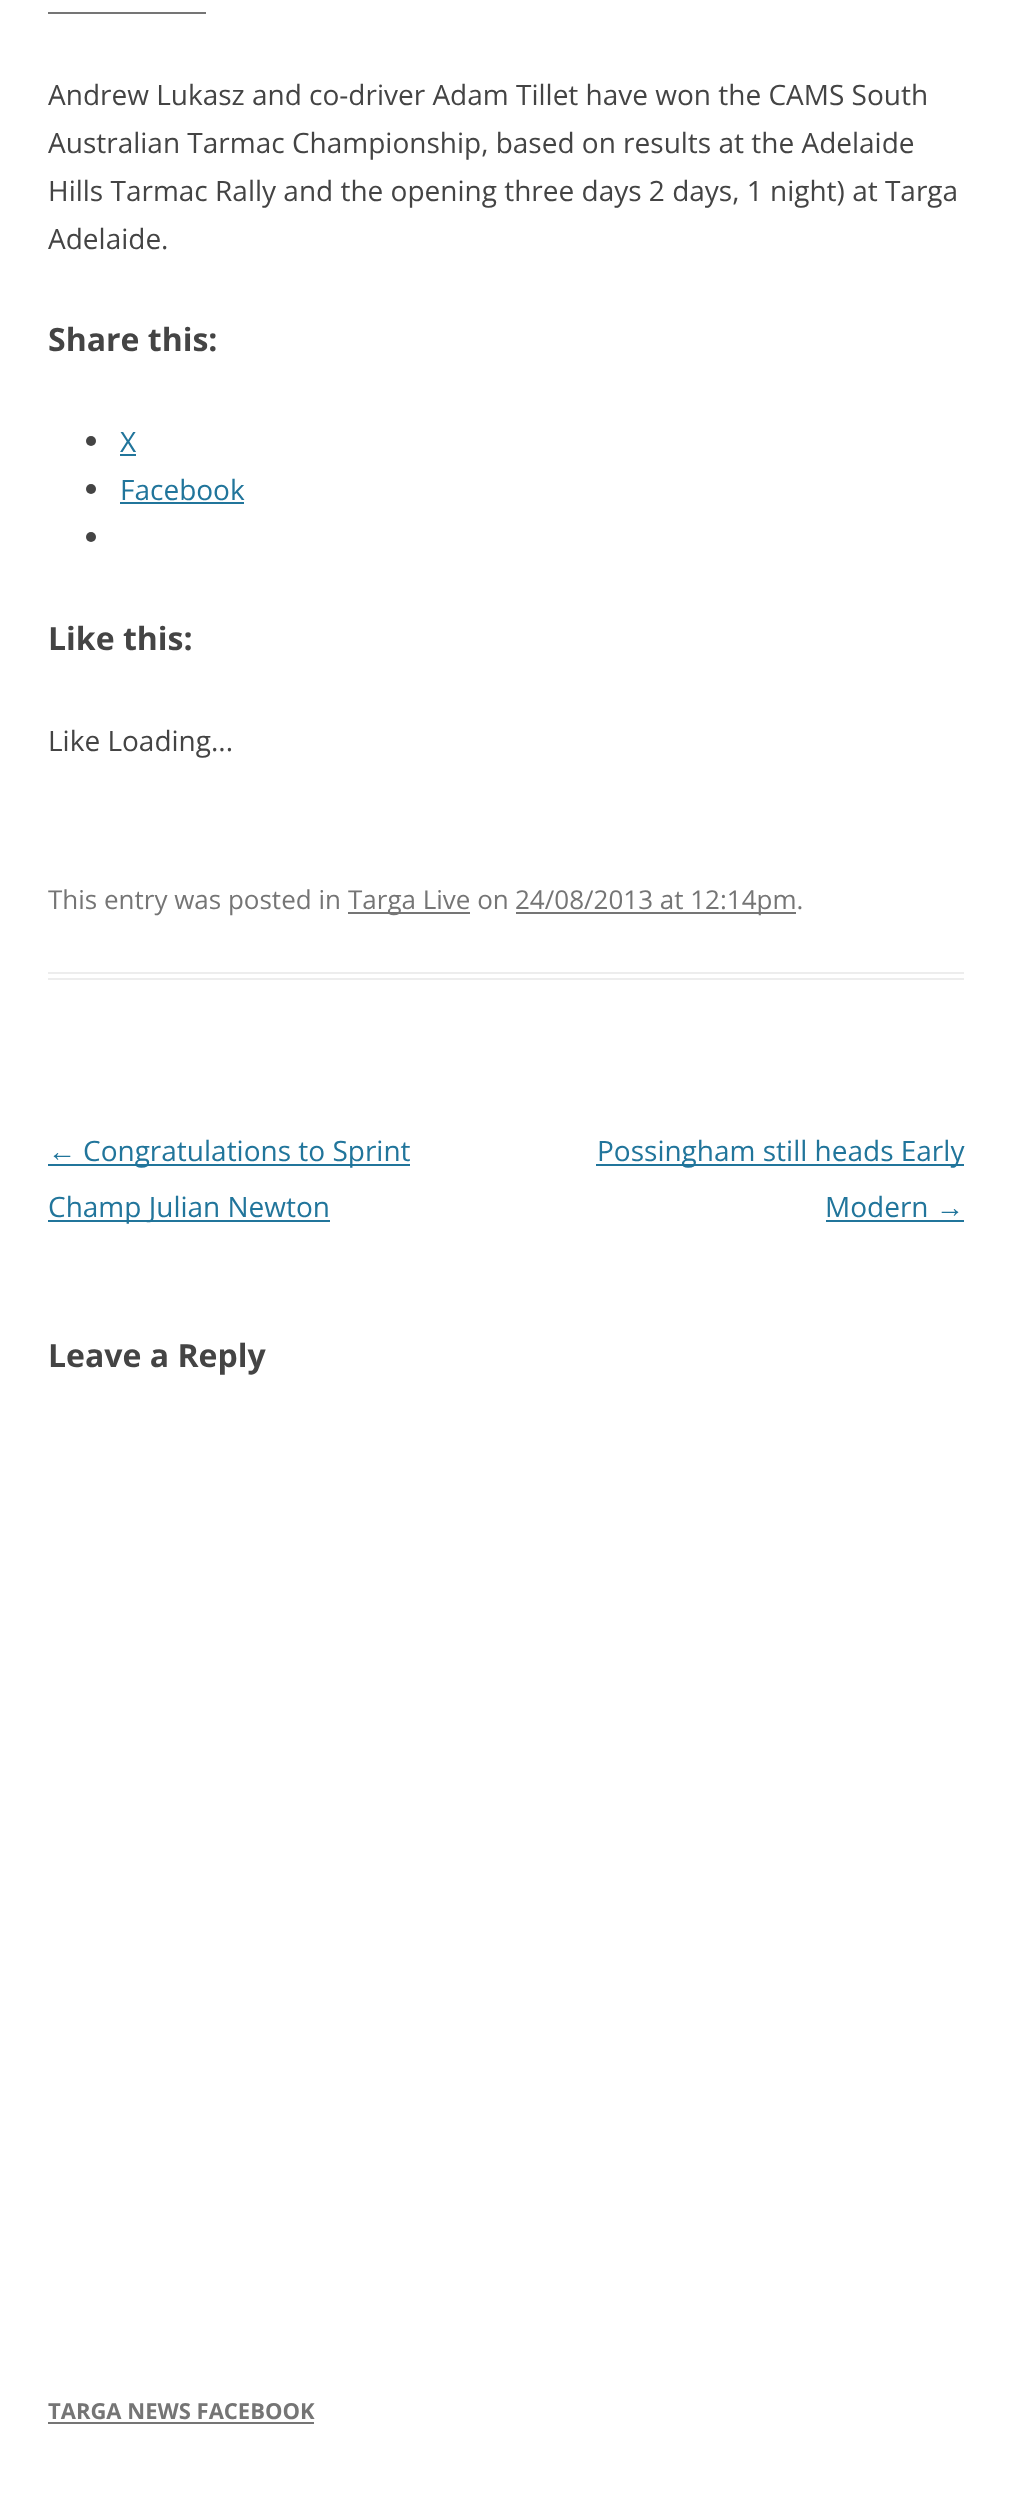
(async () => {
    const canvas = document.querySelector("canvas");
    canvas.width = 1012;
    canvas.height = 2501;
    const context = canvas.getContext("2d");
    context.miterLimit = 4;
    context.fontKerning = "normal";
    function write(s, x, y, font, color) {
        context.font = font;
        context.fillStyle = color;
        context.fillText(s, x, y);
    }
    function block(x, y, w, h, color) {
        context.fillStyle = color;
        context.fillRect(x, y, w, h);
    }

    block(0, 0, 1012, 2501, "rgb(255, 255, 255)");
    block(48, 972, 916, 2, "rgb(237, 237, 237)");
    block(48, 978, 916, 2, "rgb(237, 237, 237)");
    block(48, 12, 158, 2, "rgb(117, 117, 117)");
    write("Andrew Lukasz and co-driver Adam Tillet have won the CAMS South", 48, 105, "28px Open Sans", "rgb(68, 68, 68)");
    write("Australian Tarmac Championship, based on results at the Adelaide", 48, 153, "28px Open Sans", "rgb(68, 68, 68)");
    write("Hills Tarmac Rally and the opening three days 2 days, 1 night) at Targa", 48, 201, "28px Open Sans", "rgb(68, 68, 68)");
    write("Adelaide.", 48, 249, "28px Open Sans", "rgb(68, 68, 68)");
    write("Share this:", 48, 351, "bold 32px Open Sans", "rgb(68, 68, 68)");
    context.beginPath();
    context.arc(91, 441, 5, 0, Math.PI * 2);
    context.fill();
    write("X", 120, 452, "28px Open Sans", "rgb(33, 117, 155)");
    block(120, 454, 16, 2, "rgb(33, 117, 155)");
    context.fillStyle = "rgb(68, 68, 68)";
    context.beginPath();
    context.arc(91, 489, 5, 0, Math.PI * 2);
    context.fill();
    write("Facebook", 120, 500, "28px Open Sans", "rgb(33, 117, 155)");
    block(120, 502, 124, 2, "rgb(33, 117, 155)");
    context.fillStyle = "rgb(68, 68, 68)";
    context.beginPath();
    context.arc(91, 537, 5, 0, Math.PI * 2);
    context.fill();
    write("Like this:", 48, 650, "bold 32px Open Sans", "rgb(68, 68, 68)");
    write("Like Loading...", 48, 751, "28px Open Sans", "rgb(68, 68, 68)");
    write("This entry was posted in", 48, 909, "26px Open Sans", "rgb(117, 117, 117)");
    block(348, 912, 122, 2, "rgb(117, 117, 117)");
    write("Targa Live on", 348, 909, "26px Open Sans", "rgb(117, 117, 117)");
    block(516, 912, 280, 2, "rgb(117, 117, 117)");
    write("24/08/2013 at 12:14pm.", 515, 909, "26px Open Sans", "rgb(117, 117, 117)");
    write("←", 48, 1161, "28px Liberation Sans", "rgb(33, 117, 155)");
    block(48, 1164, 362, 2, "rgb(33, 117, 155)");
    write("Congratulations to Sprint", 83, 1161, "28px Open Sans", "rgb(33, 117, 155)");
    block(48, 1220, 282, 2, "rgb(33, 117, 155)");
    write("Champ Julian Newton", 48, 1217, "28px Open Sans", "rgb(33, 117, 155)");
    block(596, 1164, 368, 2, "rgb(33, 117, 155)");
    write("Possingham still heads Early", 597, 1161, "28px Open Sans", "rgb(33, 117, 155)");
    write("Modern", 825, 1217, "28px Open Sans", "rgb(33, 117, 155)");
    write("→", 936, 1217, "28px Liberation Sans", "rgb(33, 117, 155)");
    block(826, 1220, 138, 2, "rgb(33, 117, 155)");
    write("Leave a Reply", 48, 1367, "bold 32px Open Sans", "rgb(68, 68, 68)");
    write("TARGA NEWS FACEBOOK", 48, 2419, "bold 22px Open Sans", "rgb(117, 117, 117)");
    block(48, 2422, 266, 2, "rgb(117, 117, 117)");
})();
